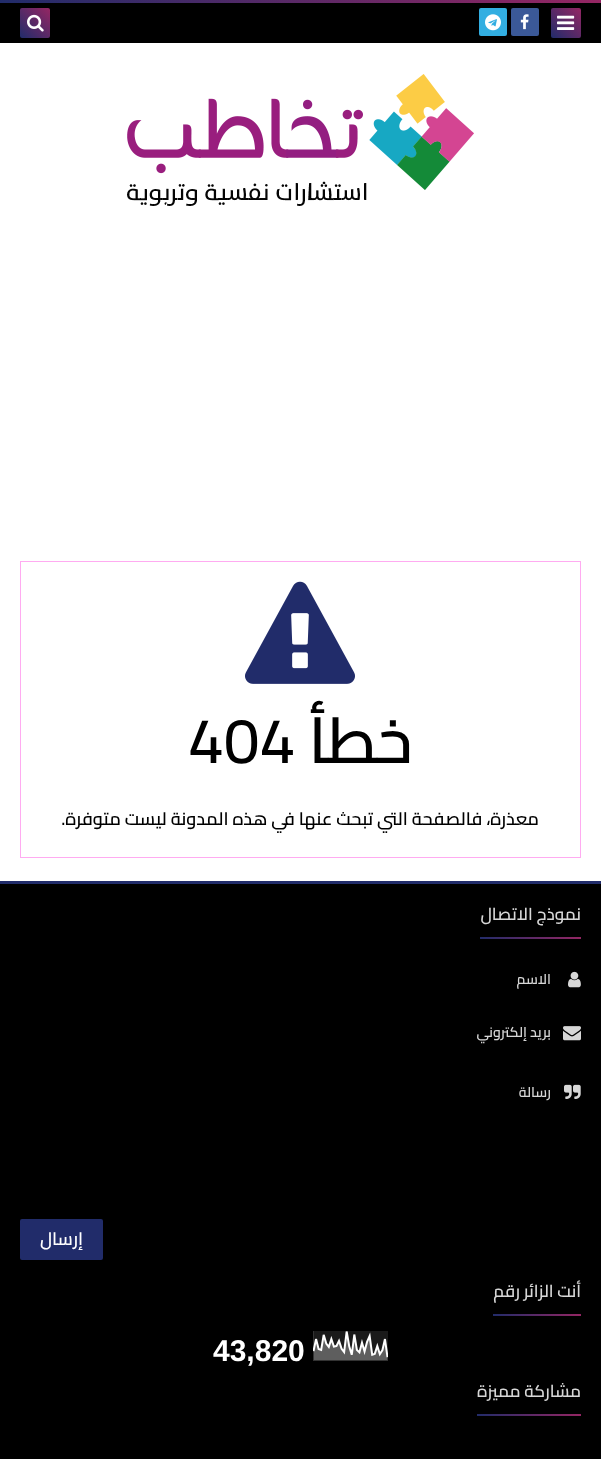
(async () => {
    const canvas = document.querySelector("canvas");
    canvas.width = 601;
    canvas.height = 1459;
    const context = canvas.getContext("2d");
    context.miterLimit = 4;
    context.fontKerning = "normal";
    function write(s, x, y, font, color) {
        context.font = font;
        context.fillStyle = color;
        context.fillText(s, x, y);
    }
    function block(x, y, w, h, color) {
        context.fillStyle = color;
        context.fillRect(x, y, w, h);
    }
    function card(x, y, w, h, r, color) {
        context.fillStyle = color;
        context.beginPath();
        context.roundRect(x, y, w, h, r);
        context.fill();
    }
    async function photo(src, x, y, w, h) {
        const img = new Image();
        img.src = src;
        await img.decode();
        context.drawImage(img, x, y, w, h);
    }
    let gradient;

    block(0, 0, 601, 1459, "rgb(255, 255, 255)");
    gradient = context.createLinearGradient(150, 153, 452, -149);
    gradient.addColorStop(0, "rgb(33, 44, 106)");
    gradient.addColorStop(1, "rgb(149, 38, 99)");
    context.fillStyle = gradient;
    context.fillRect(0, 0, 601, 3);
    block(0, 3, 601, 40, "rgb(0, 0, 0)");
    gradient = context.createLinearGradient(551, 38, 581, 8);
    gradient.addColorStop(0, "rgb(33, 44, 106)");
    gradient.addColorStop(1, "rgb(149, 38, 99)");
    context.fillStyle = gradient;
    context.beginPath();
    context.roundRect(551, 8, 30, 30, 2);
    context.fill();
    await photo("media/1.png", 557, 15, 18, 15);
    card(511, 8, 28, 28, 2, "rgb(59, 89, 152)");
    await photo("media/2.png", 520, 14, 9, 16);
    card(479, 8, 28, 28, 2, "rgb(50, 174, 225)");
    await photo("media/3.png", 485, 14, 16, 17);
    gradient = context.createLinearGradient(20, 38, 50, 8);
    gradient.addColorStop(0, "rgb(33, 44, 106)");
    gradient.addColorStop(1, "rgb(149, 38, 99)");
    context.fillStyle = gradient;
    context.beginPath();
    context.roundRect(20, 8, 30, 30, 2);
    context.fill();
    await photo("media/4.png", 27, 14, 17, 18);
    await photo("media/5.png", 127, 74, 347, 132);
    context.strokeStyle = "rgb(255, 171, 241)";
    context.strokeRect(20.5, 561.5, 560, 296);
    await photo("media/6.png", 245, 581, 110, 103);
    context.direction = "rtl";
    write("خطأ", 413, 763, "600 64px Cairo", "rgb(0, 0, 0)");
    context.direction = "ltr";
    write("404", 188, 763, "500 64px Cairo", "rgb(0, 0, 0)");
    context.direction = "rtl";
    write("معذرة، فالصفحة التي تبحث عنها في هذه المدونة ليست متوفرة.", 539, 825, "600 18px Cairo", "rgb(0, 0, 0)");
    block(0, 884, 601, 575, "rgb(0, 0, 0)");
    block(0, 881, 601, 3, "rgb(33, 44, 106)");
    write("نموذج الاتصال", 581, 920, "600 17px Cairo", "rgb(215, 215, 215)");
    gradient = context.createLinearGradient(505, 964, 556, 912);
    gradient.addColorStop(0, "rgb(33, 44, 106)");
    gradient.addColorStop(1, "rgb(149, 38, 99)");
    context.fillStyle = gradient;
    context.fillRect(480, 937, 101, 2);
    await photo("media/7.png", 568, 971, 13, 17);
    write("الاسم", 551, 984, "600 14px Cairo", "rgb(215, 215, 215)");
    await photo("media/8.png", 563, 1026, 18, 15);
    write("بريد إلكتروني", 551, 1037, "600 14px Cairo", "rgb(215, 215, 215)");
    await photo("media/9.png", 564, 1084, 17, 15);
    write("رسالة", 551, 1097, "600 14px Cairo", "rgb(215, 215, 215)");
    card(20, 1219, 83, 41, 2, "rgb(33, 44, 106)");
    write("إرسال", 83, 1245, "600 18px Cairo", "rgb(255, 255, 255)");
    write("أنت الزائر رقم", 581, 1297, "600 17px Cairo", "rgb(215, 215, 215)");
    gradient = context.createLinearGradient(515, 1338, 560, 1293);
    gradient.addColorStop(0, "rgb(33, 44, 106)");
    gradient.addColorStop(1, "rgb(149, 38, 99)");
    context.fillStyle = gradient;
    context.fillRect(493, 1314, 88, 2);
    await photo("media/10.png", 313, 1331, 75, 30);
    context.direction = "ltr";
    write("43,820", 213, 1361, "bold 30px Liberation Sans", "rgb(255, 255, 255)");
    context.direction = "rtl";
    write("مشاركة مميزة", 581, 1397, "600 17px Cairo", "rgb(215, 215, 215)");
    gradient = context.createLinearGradient(503, 1442, 556, 1389);
    gradient.addColorStop(0, "rgb(33, 44, 106)");
    gradient.addColorStop(1, "rgb(149, 38, 99)");
    context.fillStyle = gradient;
    context.fillRect(477, 1414, 104, 2);
})();
